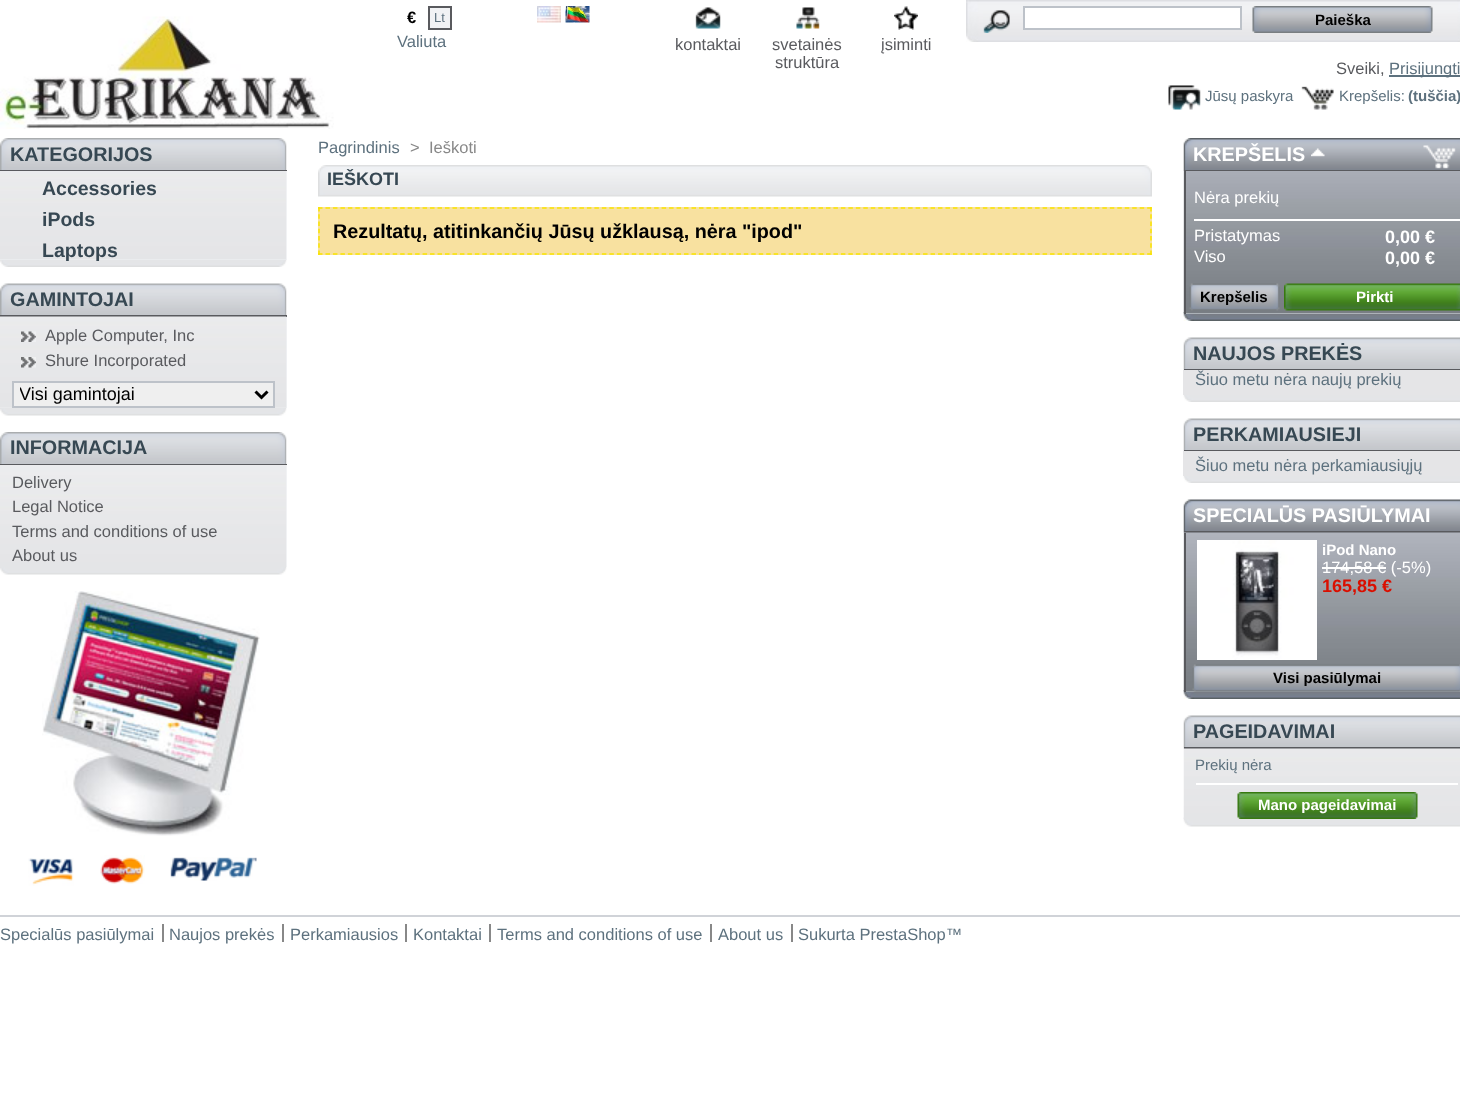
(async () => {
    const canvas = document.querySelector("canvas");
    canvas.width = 1460;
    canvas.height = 1118;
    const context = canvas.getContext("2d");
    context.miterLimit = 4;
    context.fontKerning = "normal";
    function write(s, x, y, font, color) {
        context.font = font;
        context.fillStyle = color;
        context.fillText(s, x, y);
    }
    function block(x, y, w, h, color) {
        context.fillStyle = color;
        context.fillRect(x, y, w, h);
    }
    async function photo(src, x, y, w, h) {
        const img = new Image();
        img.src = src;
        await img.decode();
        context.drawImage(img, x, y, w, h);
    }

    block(0, 0, 1460, 1118, "rgb(255, 255, 255)");
    await photo("media/1.png", 0, 16, 334, 113);
    write("€", 407, 23, "bold 16.5px Liberation Sans", "rgb(0, 0, 0)");
    context.fillStyle = "rgb(241, 242, 244)";
    context.beginPath();
    context.rect(429, 7, 22, 22);
    context.fill();
    context.strokeStyle = "rgb(89, 90, 94)";
    context.lineWidth = 2;
    context.stroke();
    write("Lt", 434, 22, "13px Liberation Sans", "rgb(93, 113, 126)");
    write("Valiuta", 397, 47, "16.5px Liberation Sans", "rgb(93, 113, 126)");
    await photo("media/2.png", 537, 6, 24, 17);
    await photo("media/3.png", 565, 6, 25, 17);
    await photo("media/4.png", 966, 0, 494, 42);
    await photo("media/5.png", 983, 10, 27, 23);
    context.fillStyle = "rgb(255, 255, 255)";
    context.beginPath();
    context.rect(1024, 7, 217, 22);
    context.fill();
    context.strokeStyle = "rgb(189, 194, 201)";
    context.stroke();
    block(1253, 6, 180, 27, "rgb(239, 239, 239)");
    await photo("media/6.png", 1252, 6, 181, 27);
    write("Paieška", 1315, 25, "bold 15px Liberation Sans", "rgb(0, 0, 0)");
    await photo("media/7.png", 695, 7, 26, 22);
    write("kontaktai", 675, 50, "16.5px Liberation Sans", "rgb(89, 90, 94)");
    await photo("media/8.png", 796, 7, 24, 22);
    write("svetainės", 772, 50, "16.5px Liberation Sans", "rgb(89, 90, 94)");
    write("struktūra", 775, 68, "16.5px Liberation Sans", "rgb(89, 90, 94)");
    await photo("media/9.png", 894, 6, 24, 24);
    write("įsiminti", 881, 50, "16.5px Liberation Sans", "rgb(89, 90, 94)");
    write("Sveiki,", 1336, 74, "16.5px Liberation Sans", "rgb(89, 90, 94)");
    block(1389, 75, 71, 2, "rgb(93, 113, 126)");
    write("Prisijungti", 1389, 74, "16.5px Liberation Sans", "rgb(93, 113, 126)");
    await photo("media/10.png", 1168, 85, 33, 25);
    write("Jūsų paskyra", 1205, 101, "15px Liberation Sans", "rgb(93, 113, 126)");
    await photo("media/11.png", 1301, 86, 33, 24);
    write("Krepšelis:", 1339, 101, "15px Liberation Sans", "rgb(93, 113, 126)");
    write("(tuščia)", 1408, 101, "bold 15px Liberation Sans", "rgb(93, 113, 126)");
    await photo("media/12.png", 0, 260, 287, 7);
    await photo("media/13.png", 0, 138, 287, 32);
    block(0, 170, 287, 1, "rgb(89, 90, 94)");
    write("KATEGORIJOS", 10, 161, "bold 19.8px Liberation Sans", "rgb(55, 72, 83)");
    block(0, 171, 287, 89, "rgb(241, 242, 244)");
    await photo("media/14.png", 0, 171, 286, 89);
    write("Accessories", 42, 195, "bold 19.5px Liberation Sans", "rgb(55, 72, 83)");
    write("iPods", 42, 226, "bold 19.5px Liberation Sans", "rgb(55, 72, 83)");
    write("Laptops", 42, 257, "bold 19.5px Liberation Sans", "rgb(55, 72, 83)");
    await photo("media/15.png", 0, 408, 287, 8);
    await photo("media/16.png", 0, 283, 287, 32);
    block(0, 315, 287, 2, "rgb(89, 90, 94)");
    write("GAMINTOJAI", 10, 306, "bold 19.8px Liberation Sans", "rgb(55, 72, 83)");
    block(286, 317, 1, 91, "rgb(241, 242, 244)");
    await photo("media/17.png", 0, 316, 287, 92);
    await photo("media/18.png", 21, 331, 15, 11);
    write("Apple Computer, Inc", 45, 341, "16.5px Liberation Sans", "rgb(89, 90, 94)");
    await photo("media/19.png", 21, 357, 15, 11);
    write("Shure Incorporated", 45, 366, "16.5px Liberation Sans", "rgb(89, 90, 94)");
    context.fillStyle = "rgb(239, 239, 239)";
    context.beginPath();
    context.rect(13, 382, 261, 25);
    context.fill();
    context.stroke();
    context.beginPath();
    context.moveTo(255.5, 391.5);
    context.lineTo(261.5, 397.5);
    context.lineTo(267.5, 391.5);
    context.strokeStyle = "rgb(0, 0, 0)";
    context.lineWidth = 3;
    context.stroke();
    context.save();
    context.beginPath();
    context.rect(20, 383, 229, 24);
    context.clip();
    write("Visi gamintojai", 19, 400, "18px Liberation Sans", "rgb(0, 0, 0)");
    context.restore();
    await photo("media/15.png", 0, 567, 287, 8);
    await photo("media/13.png", 0, 432, 287, 32);
    block(0, 464, 287, 1, "rgb(89, 90, 94)");
    write("INFORMACIJA", 10, 454, "bold 19.8px Liberation Sans", "rgb(55, 72, 83)");
    block(286, 465, 1, 102, "rgb(241, 242, 244)");
    await photo("media/20.png", 0, 465, 286, 102);
    write("Delivery", 12, 488, "16.5px Liberation Sans", "rgb(89, 90, 94)");
    write("Legal Notice", 12, 512, "16.5px Liberation Sans", "rgb(89, 90, 94)");
    write("Terms and conditions of use", 12, 537, "16.5px Liberation Sans", "rgb(89, 90, 94)");
    write("About us", 12, 561, "16.5px Liberation Sans", "rgb(89, 90, 94)");
    await photo("media/21.png", 42, 591, 218, 245);
    await photo("media/22.png", 28, 858, 46, 28);
    await photo("media/23.png", 100, 855, 45, 29);
    await photo("media/24.png", 170, 857, 87, 24);
    write("Pagrindinis", 318, 153, "16.5px Liberation Sans", "rgb(93, 113, 126)");
    write(">", 410, 153, "16.5px Liberation Sans", "rgb(136, 136, 136)");
    write("Ieškoti", 429, 153, "16.5px Liberation Sans", "rgb(136, 136, 136)");
    await photo("media/25.png", 318, 165, 834, 32);
    write("IEŠKOTI", 327, 185, "bold 18px Liberation Sans", "rgb(55, 72, 83)");
    block(318, 207, 834, 48, "rgb(248, 225, 160)");
    context.beginPath();
    context.moveTo(318, 208);
    context.lineTo(1152, 208);
    context.strokeStyle = "rgb(249, 228, 0)";
    context.lineWidth = 1.5;
    context.setLineDash([4.5, 2.97]);
    context.stroke();
    context.beginPath();
    context.moveTo(1151, 207);
    context.lineTo(1151, 255);
    context.setLineDash([4.5, 2.75]);
    context.stroke();
    context.beginPath();
    context.moveTo(318, 254);
    context.lineTo(1152, 254);
    context.setLineDash([4.5, 2.97]);
    context.stroke();
    context.beginPath();
    context.moveTo(319, 207);
    context.lineTo(319, 255);
    context.setLineDash([4.5, 2.75]);
    context.stroke();
    write("Rezultatų, atitinkančių Jūsų užklausą, nėra \"ipod\"", 333, 238, "bold 19.8px Liberation Sans", "rgb(0, 0, 0)");
    await photo("media/26.png", 1183, 312, 277, 9);
    await photo("media/27.png", 1183, 138, 277, 33);
    block(1184, 170, 276, 1, "rgb(89, 90, 94)");
    write("KREPŠELIS", 1193, 161, "bold 19.8px Liberation Sans", "rgb(255, 255, 255)");
    await photo("media/28.png", 1311, 148, 14, 9);
    block(1186, 313, 274, 1, "rgb(189, 194, 201)");
    await photo("media/29.png", 1183, 171, 277, 143);
    block(1184, 171, 2, 143, "rgb(89, 90, 94)");
    write("Nėra prekių", 1194, 203, "16.5px Liberation Sans", "rgb(255, 255, 255)");
    block(1194, 219, 266, 2, "rgb(255, 255, 255)");
    write("Pristatymas", 1194, 241, "16.5px Liberation Sans", "rgb(255, 255, 255)");
    write("0,00 €", 1385, 243, "bold 18px Liberation Sans", "rgb(255, 255, 255)");
    write("Viso", 1194, 262, "16.5px Liberation Sans", "rgb(255, 255, 255)");
    write("0,00 €", 1385, 264, "bold 18px Liberation Sans", "rgb(255, 255, 255)");
    await photo("media/30.png", 1189, 283, 91, 28);
    write("Krepšelis", 1200, 302, "bold 15px Liberation Sans", "rgb(0, 0, 0)");
    await photo("media/31.png", 1284, 283, 176, 28);
    write("Pirkti", 1356, 302, "bold 15px Liberation Sans", "rgb(255, 255, 255)");
    await photo("media/32.png", 1183, 395, 277, 7);
    await photo("media/33.png", 1183, 337, 277, 33);
    block(1184, 369, 276, 1, "rgb(89, 90, 94)");
    write("NAUJOS PREKĖS", 1193, 360, "bold 19.8px Liberation Sans", "rgb(55, 72, 83)");
    block(1183, 370, 277, 25, "rgb(229, 229, 231)");
    write("Šiuo metu nėra naujų prekių", 1195, 385, "16.5px Liberation Sans", "rgb(93, 113, 126)");
    await photo("media/32.png", 1183, 476, 277, 7);
    await photo("media/33.png", 1183, 418, 277, 33);
    block(1184, 450, 276, 1, "rgb(89, 90, 94)");
    write("PERKAMIAUSIEJI", 1193, 441, "bold 19.8px Liberation Sans", "rgb(55, 72, 83)");
    block(1183, 451, 277, 25, "rgb(229, 229, 231)");
    write("Šiuo metu nėra perkamiausiųjų", 1195, 471, "16.5px Liberation Sans", "rgb(93, 113, 126)");
    await photo("media/26.png", 1183, 690, 277, 9);
    await photo("media/34.png", 1183, 499, 277, 34);
    block(1184, 531, 276, 2, "rgb(89, 90, 94)");
    write("SPECIALŪS PASIŪLYMAI", 1193, 522, "bold 19.8px Liberation Sans", "rgb(255, 255, 255)");
    block(1186, 691, 274, 1, "rgb(189, 194, 201)");
    await photo("media/35.png", 1183, 532, 277, 160);
    block(1184, 533, 2, 159, "rgb(89, 90, 94)");
    await photo("media/36.png", 1197, 540, 120, 120);
    write("iPod Nano", 1322, 555, "bold 15px Liberation Sans", "rgb(255, 255, 255)");
    write("174,58 € (-5%)", 1322, 573, "16.5px Liberation Sans", "rgb(255, 255, 255)");
    block(1322, 567, 64, 2, "rgb(255, 255, 255)");
    write("165,85 €", 1322, 592, "bold 18px Liberation Sans", "rgb(218, 15, 0)");
    await photo("media/37.png", 1192, 664, 268, 28);
    write("Visi pasiūlymai", 1273, 683, "bold 15px Liberation Sans", "rgb(0, 0, 0)");
    await photo("media/38.png", 1183, 817, 277, 10);
    await photo("media/39.png", 1183, 715, 277, 34);
    block(1184, 747, 276, 2, "rgb(89, 90, 94)");
    write("PAGEIDAVIMAI", 1193, 738, "bold 19.8px Liberation Sans", "rgb(55, 72, 83)");
    await photo("media/40.png", 1183, 748, 277, 71);
    block(1196, 783, 262, 2, "rgb(255, 255, 255)");
    write("Prekių nėra", 1195, 770, "15px Liberation Sans", "rgb(93, 113, 126)");
    await photo("media/41.png", 1237, 792, 181, 27);
    write("Mano pageidavimai", 1258, 810, "bold 15px Liberation Sans", "rgb(255, 255, 255)");
    block(0, 915, 1460, 2, "rgb(208, 211, 216)");
    write("Specialūs pasiūlymai", 0, 940, "16.5px Liberation Sans", "rgb(93, 113, 126)");
    write("Naujos prekės", 169, 940, "16.5px Liberation Sans", "rgb(93, 113, 126)");
    block(162, 924, 2, 18, "rgb(136, 136, 136)");
    write("Perkamiausios", 290, 940, "16.5px Liberation Sans", "rgb(93, 113, 126)");
    block(282, 924, 2, 18, "rgb(136, 136, 136)");
    write("Kontaktai", 413, 940, "16.5px Liberation Sans", "rgb(93, 113, 126)");
    block(405, 924, 2, 18, "rgb(136, 136, 136)");
    write("Terms and conditions of use", 497, 940, "16.5px Liberation Sans", "rgb(93, 113, 126)");
    block(489, 924, 2, 18, "rgb(136, 136, 136)");
    write("About us", 718, 940, "16.5px Liberation Sans", "rgb(93, 113, 126)");
    block(710, 924, 2, 18, "rgb(136, 136, 136)");
    write("Sukurta PrestaShop™", 798, 940, "16.5px Liberation Sans", "rgb(93, 113, 126)");
    block(791, 924, 2, 18, "rgb(136, 136, 136)");
})();
